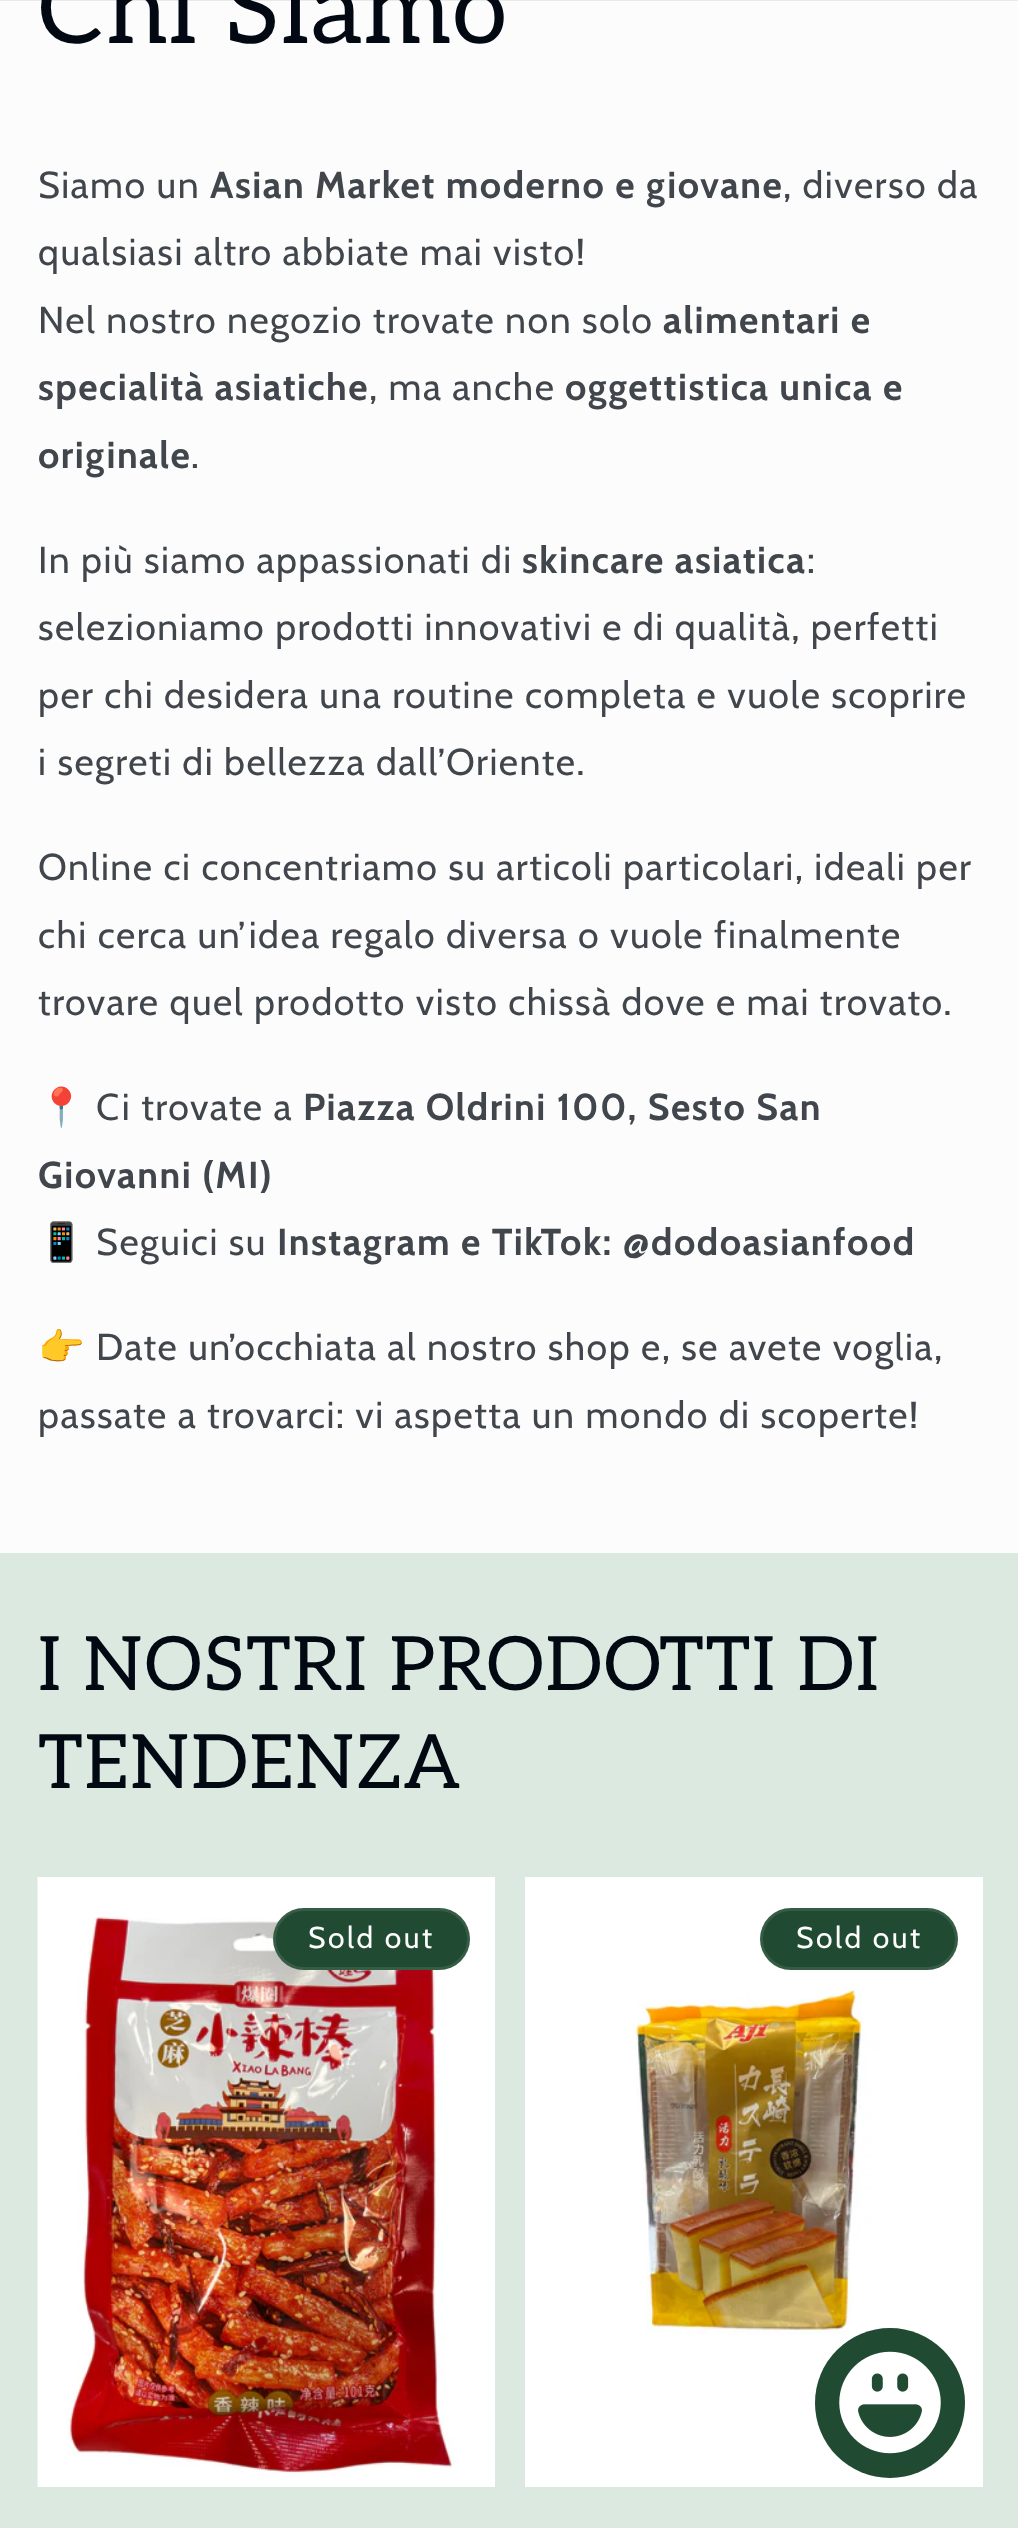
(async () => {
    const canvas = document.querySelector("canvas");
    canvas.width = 1018;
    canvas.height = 2528;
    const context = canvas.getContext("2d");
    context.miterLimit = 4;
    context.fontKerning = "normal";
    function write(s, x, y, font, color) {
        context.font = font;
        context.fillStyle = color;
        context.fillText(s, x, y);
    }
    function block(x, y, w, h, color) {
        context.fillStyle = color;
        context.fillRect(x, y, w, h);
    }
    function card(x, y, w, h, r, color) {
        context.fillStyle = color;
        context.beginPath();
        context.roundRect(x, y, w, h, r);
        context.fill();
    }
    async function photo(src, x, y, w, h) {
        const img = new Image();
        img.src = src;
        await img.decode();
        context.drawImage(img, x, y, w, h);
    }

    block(0, 0, 1018, 2528, "rgb(252, 252, 252)");
    block(0, 0, 1018, 1, "rgba(2, 9, 18, 0.08)");
    context.letterSpacing = "1.5px";
    write("Chi Siamo", 38, 43, "100px Aleo", "rgb(2, 9, 18)");
    write("Siamo un", 38, 198, "37.5px Cabin", "rgb(65, 70, 77)");
    write("Asian Market moderno e giovane", 210, 198, "bold 37.5px Cabin", "rgb(65, 70, 77)");
    write(", diverso da", 783, 198, "37.5px Cabin", "rgb(65, 70, 77)");
    write("qualsiasi altro abbiate mai visto!", 38, 265, "37.5px Cabin", "rgb(65, 70, 77)");
    write("Nel nostro negozio trovate non solo", 38, 333, "37.5px Cabin", "rgb(65, 70, 77)");
    write("alimentari e", 663, 333, "bold 37.5px Cabin", "rgb(65, 70, 77)");
    write("specialità asiatiche", 38, 400, "bold 37.5px Cabin", "rgb(65, 70, 77)");
    write(", ma anche", 369, 400, "37.5px Cabin", "rgb(65, 70, 77)");
    write("oggettistica unica e", 565, 400, "bold 37.5px Cabin", "rgb(65, 70, 77)");
    write("originale", 38, 468, "bold 37.5px Cabin", "rgb(65, 70, 77)");
    write(".", 191, 468, "37.5px Cabin", "rgb(65, 70, 77)");
    write("In più siamo appassionati di", 38, 573, "37.5px Cabin", "rgb(65, 70, 77)");
    write("skincare asiatica", 522, 573, "bold 37.5px Cabin", "rgb(65, 70, 77)");
    write(":", 807, 573, "37.5px Cabin", "rgb(65, 70, 77)");
    write("selezioniamo prodotti innovativi e di qualità, perfetti", 38, 640, "37.5px Cabin", "rgb(65, 70, 77)");
    write("per chi desidera una routine completa e vuole scoprire", 38, 708, "37.5px Cabin", "rgb(65, 70, 77)");
    write("i segreti di bellezza dall’Oriente.", 38, 775, "37.5px Cabin", "rgb(65, 70, 77)");
    write("Online ci concentriamo su articoli particolari, ideali per", 38, 880, "37.5px Cabin", "rgb(65, 70, 77)");
    write("chi cerca un’idea regalo diversa o vuole finalmente", 38, 948, "37.5px Cabin", "rgb(65, 70, 77)");
    write("trovare quel prodotto visto chissà dove e mai trovato.", 38, 1015, "37.5px Cabin", "rgb(65, 70, 77)");
    write("📍", 38, 1120, "37.5px Noto Color Emoji", "rgb(65, 70, 77)");
    write("Ci trovate a", 96, 1120, "37.5px Cabin", "rgb(65, 70, 77)");
    write("Piazza Oldrini 100, Sesto San", 303, 1120, "bold 37.5px Cabin", "rgb(65, 70, 77)");
    write("Giovanni (MI)", 38, 1188, "bold 37.5px Cabin", "rgb(65, 70, 77)");
    write("📱", 38, 1255, "37.5px Noto Color Emoji", "rgb(65, 70, 77)");
    write("Seguici su", 96, 1255, "37.5px Cabin", "rgb(65, 70, 77)");
    write("Instagram e TikTok: @dodoasianfood", 277, 1255, "bold 37.5px Cabin", "rgb(65, 70, 77)");
    write("👉", 38, 1360, "37.5px Noto Color Emoji", "rgb(65, 70, 77)");
    write("Date un’occhiata al nostro shop e, se avete voglia,", 96, 1360, "37.5px Cabin", "rgb(65, 70, 77)");
    write("passate a trovarci: vi aspetta un mondo di scoperte!", 38, 1428, "37.5px Cabin", "rgb(65, 70, 77)");
    block(0, 1553, 1018, 975, "rgb(219, 233, 224)");
    write("I NOSTRI PRODOTTI DI", 38, 1690, "75px Aleo", "rgb(2, 9, 18)");
    write("TENDENZA", 38, 1788, "75px Aleo", "rgb(2, 9, 18)");
    await photo("media/1.png", 37, 1877, 458, 610);
    card(273, 1908, 197, 62, 31, "rgb(32, 74, 49)");
    context.beginPath();
    context.roundRect(274.5, 1909.5, 194, 59, 29.5);
    context.strokeStyle = "rgba(252, 252, 252, 0.1)";
    context.lineWidth = 3;
    context.stroke();
    context.letterSpacing = "2.5px";
    write("Sold out", 308, 1948, "30px Cabin", "rgb(252, 252, 252)");
    await photo("media/2.png", 525, 1877, 458, 610);
    card(760, 1908, 198, 62, 31, "rgb(32, 74, 49)");
    context.beginPath();
    context.roundRect(761.5, 1909.5, 195, 59, 29.5);
    context.stroke();
    write("Sold out", 796, 1948, "30px Cabin", "rgb(252, 252, 252)");
    context.fillStyle = "rgb(32, 74, 49)";
    context.beginPath();
    context.arc(890, 2403, 75, 0, Math.PI * 2);
    context.fill();
    await photo("media/3.png", 839, 2351, 102, 103);
})();
